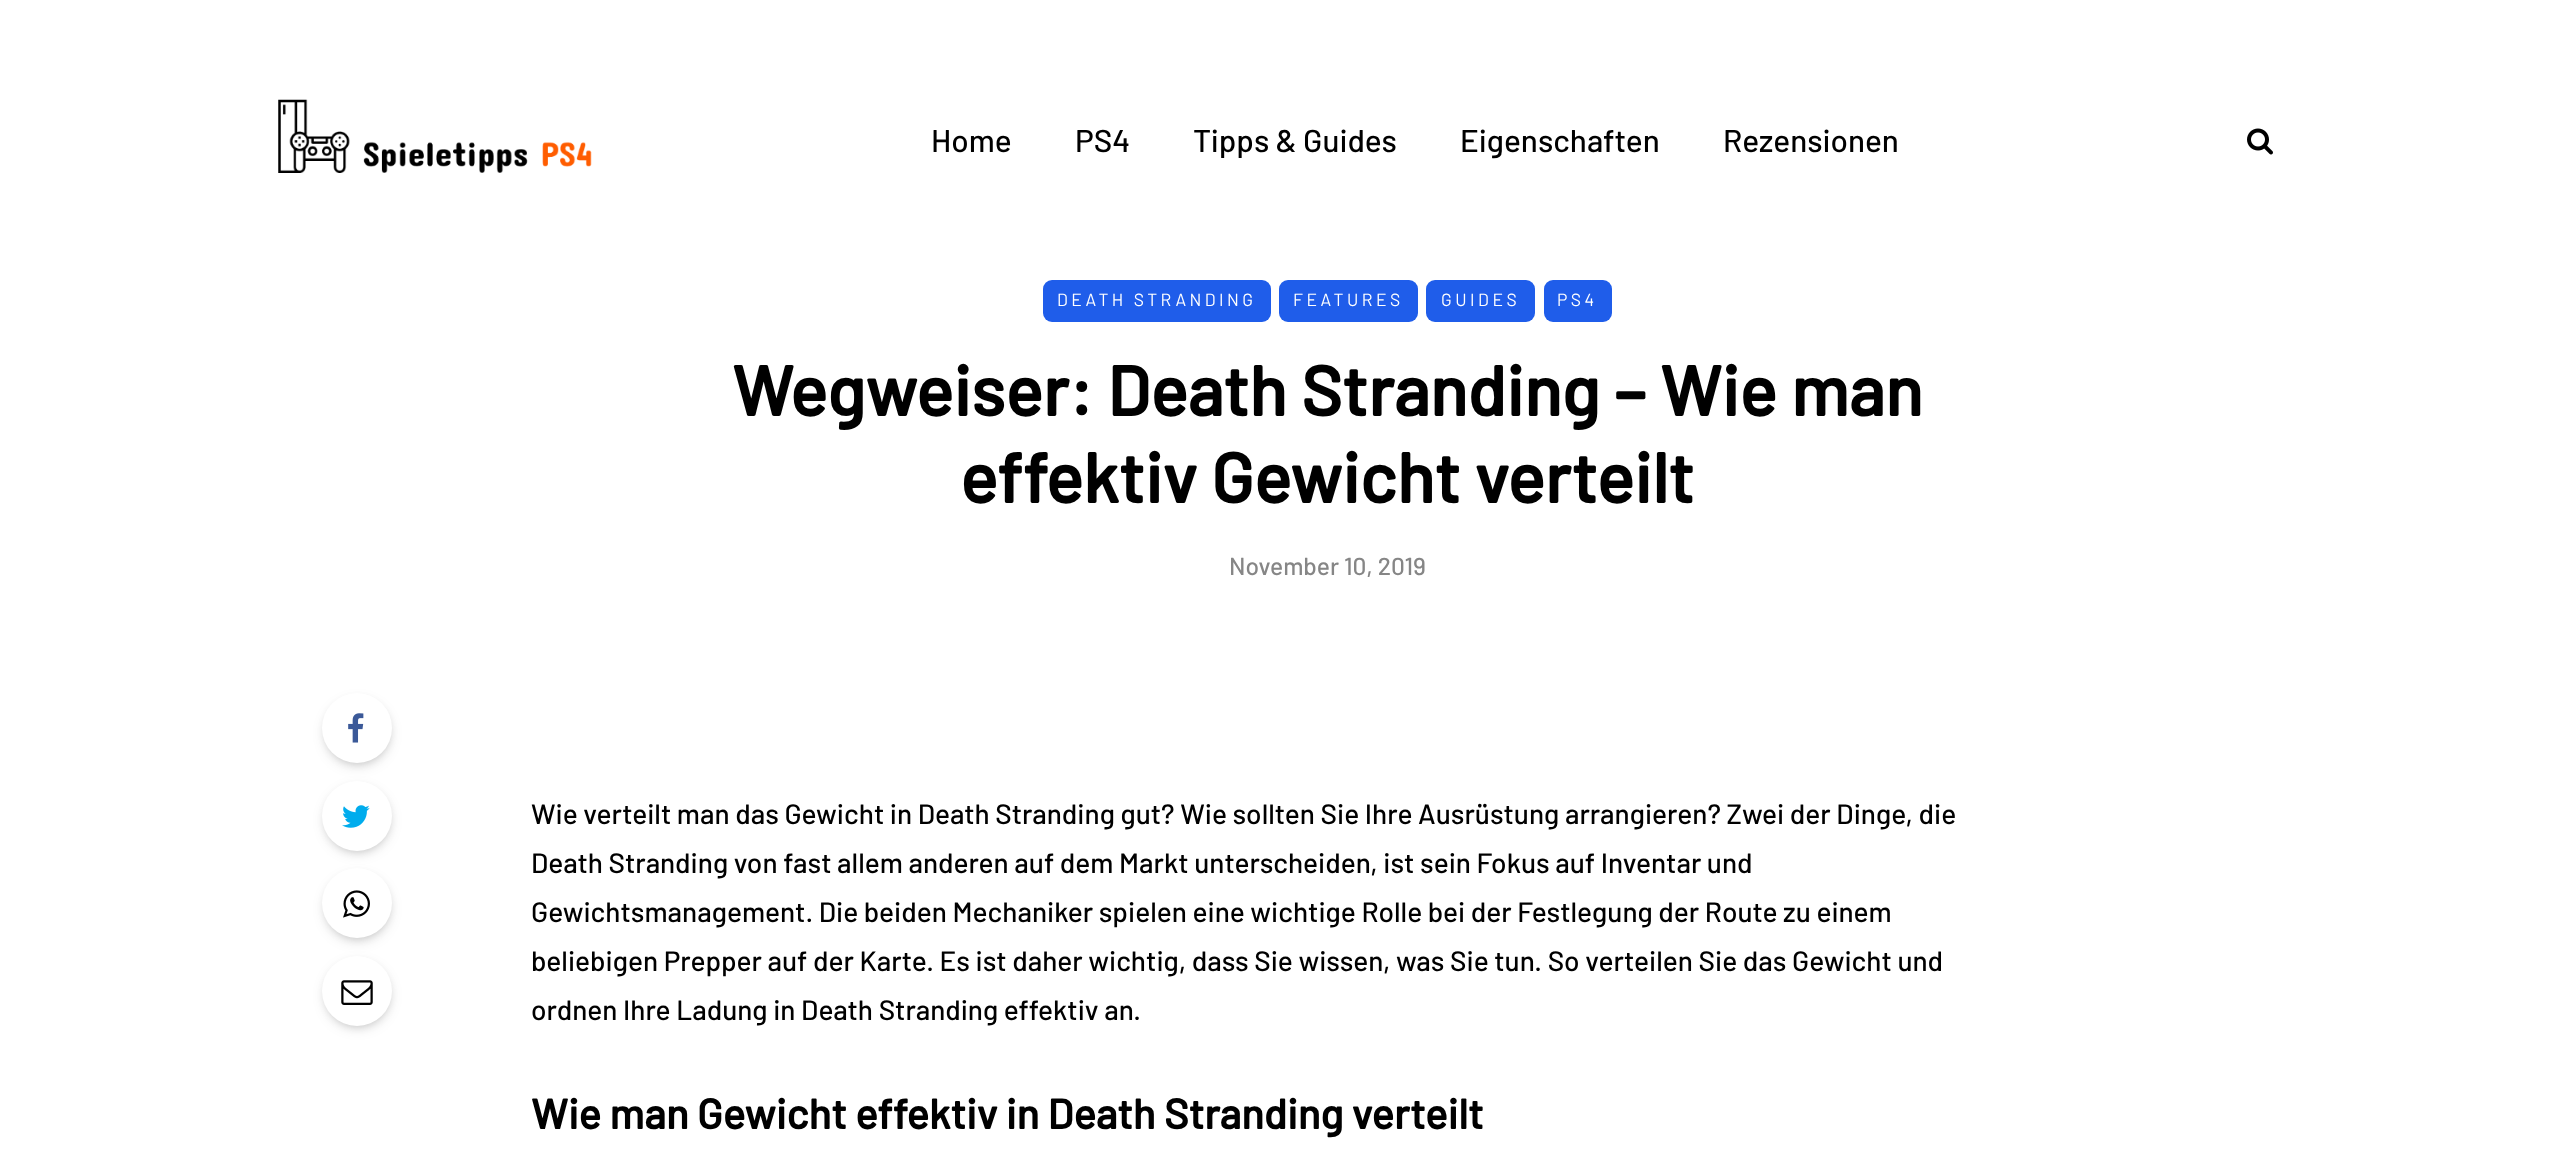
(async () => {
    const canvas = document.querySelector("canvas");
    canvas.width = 2549;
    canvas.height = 1152;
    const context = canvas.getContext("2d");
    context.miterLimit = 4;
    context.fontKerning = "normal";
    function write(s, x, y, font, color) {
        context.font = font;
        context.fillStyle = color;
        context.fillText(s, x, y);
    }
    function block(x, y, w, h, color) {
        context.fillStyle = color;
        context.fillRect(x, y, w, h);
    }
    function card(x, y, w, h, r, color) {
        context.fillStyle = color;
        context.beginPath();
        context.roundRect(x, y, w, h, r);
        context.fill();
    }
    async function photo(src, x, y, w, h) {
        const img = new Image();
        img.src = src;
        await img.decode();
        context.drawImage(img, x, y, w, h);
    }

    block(0, 0, 2549, 1152, "rgb(255, 255, 255)");
    await photo("media/1.png", 278, 99, 314, 74);
    write("Home", 931, 152, "500 31.5px Barlow", "rgb(0, 0, 0)");
    write("PS4", 1075, 152, "500 31.5px Barlow", "rgb(0, 0, 0)");
    write("Tipps & Guides", 1193, 152, "500 31.5px Barlow", "rgb(0, 0, 0)");
    write("Eigenschaften", 1460, 152, "500 31.5px Barlow", "rgb(0, 0, 0)");
    write("Rezensionen", 1723, 152, "500 31.5px Barlow", "rgb(0, 0, 0)");
    await photo("media/2.png", 2247, 128, 26, 27);
    card(1043, 280, 228, 42, 9, "rgb(31, 93, 234)");
    context.letterSpacing = "3.5px";
    write("DEATH STRANDING", 1057, 306, "17.5px Barlow", "rgb(255, 255, 255)");
    card(1279, 280, 139, 42, 9, "rgb(31, 93, 234)");
    write("FEATURES", 1293, 306, "17.5px Barlow", "rgb(255, 255, 255)");
    card(1426, 280, 109, 42, 9, "rgb(31, 93, 234)");
    write("GUIDES", 1441, 306, "17.5px Barlow", "rgb(255, 255, 255)");
    card(1544, 280, 68, 42, 9, "rgb(31, 93, 234)");
    write("PS4", 1557, 306, "17.5px Barlow", "rgb(255, 255, 255)");
    context.letterSpacing = "0px";
    write("Wegweiser: Death Stranding – Wie man", 732, 416, "bold 70px Barlow", "rgb(0, 0, 0)");
    write("effektiv Gewicht verteilt", 960, 503, "bold 70px Barlow", "rgb(0, 0, 0)");
    write("November 10, 2019", 1229, 575, "500 24.5px Barlow", "rgb(134, 134, 134)");
    context.fillStyle = "rgba(0, 0, 0, 0.15)";
    context.filter = "blur(7px)";
    context.beginPath();
    context.roundRect(326, 702, 63, 63, 31.5);
    context.fill();
    context.filter = "none";
    context.filter = "blur(4.5px)";
    context.beginPath();
    context.roundRect(326, 700, 63, 63, 31.5);
    context.fill();
    context.filter = "none";
    context.fillStyle = "rgb(255, 255, 255)";
    context.beginPath();
    context.arc(357, 728, 35, 0, Math.PI * 2);
    context.fill();
    await photo("media/3.png", 348, 713, 16, 30);
    context.fillStyle = "rgba(0, 0, 0, 0.15)";
    context.filter = "blur(7px)";
    context.beginPath();
    context.roundRect(326, 789, 63, 63, 31.5);
    context.fill();
    context.filter = "none";
    context.filter = "blur(4.5px)";
    context.beginPath();
    context.roundRect(326, 788, 63, 63, 31.5);
    context.fill();
    context.filter = "none";
    context.fillStyle = "rgb(255, 255, 255)";
    context.beginPath();
    context.arc(357, 816, 35, 0, Math.PI * 2);
    context.fill();
    await photo("media/4.png", 342, 805, 28, 23);
    context.fillStyle = "rgba(0, 0, 0, 0.15)";
    context.filter = "blur(7px)";
    context.beginPath();
    context.roundRect(326, 877, 63, 63, 31.5);
    context.fill();
    context.filter = "none";
    context.filter = "blur(4.5px)";
    context.beginPath();
    context.roundRect(326, 875, 63, 63, 31.5);
    context.fill();
    context.filter = "none";
    context.fillStyle = "rgb(255, 255, 255)";
    context.beginPath();
    context.arc(357, 903, 35, 0, Math.PI * 2);
    context.fill();
    await photo("media/5.png", 343, 890, 27, 28);
    context.fillStyle = "rgba(0, 0, 0, 0.15)";
    context.filter = "blur(7px)";
    context.beginPath();
    context.roundRect(326, 964, 63, 63, 31.5);
    context.fill();
    context.filter = "none";
    context.filter = "blur(4.5px)";
    context.beginPath();
    context.roundRect(326, 963, 63, 63, 31.5);
    context.fill();
    context.filter = "none";
    context.fillStyle = "rgb(255, 255, 255)";
    context.beginPath();
    context.arc(357, 991, 35, 0, Math.PI * 2);
    context.fill();
    await photo("media/6.png", 341, 980, 32, 25);
    write("Wie verteilt man das Gewicht in Death Stranding gut? Wie sollten Sie Ihre Ausrüstung arrangieren? Zwei der Dinge, die", 531, 824, "500 28px Barlow", "rgb(0, 0, 0)");
    write("Death Stranding von fast allem anderen auf dem Markt unterscheiden, ist sein Fokus auf Inventar und", 531, 873, "500 28px Barlow", "rgb(0, 0, 0)");
    write("Gewichtsmanagement. Die beiden Mechaniker spielen eine wichtige Rolle bei der Festlegung der Route zu einem", 531, 922, "500 28px Barlow", "rgb(0, 0, 0)");
    write("beliebigen Prepper auf der Karte. Es ist daher wichtig, dass Sie wissen, was Sie tun. So verteilen Sie das Gewicht und", 531, 971, "500 28px Barlow", "rgb(0, 0, 0)");
    write("ordnen Ihre Ladung in Death Stranding effektiv an.", 531, 1020, "500 28px Barlow", "rgb(0, 0, 0)");
    write("Wie man Gewicht effektiv in Death Stranding verteilt", 531, 1129, "bold 42px Barlow", "rgb(0, 0, 0)");
})();
